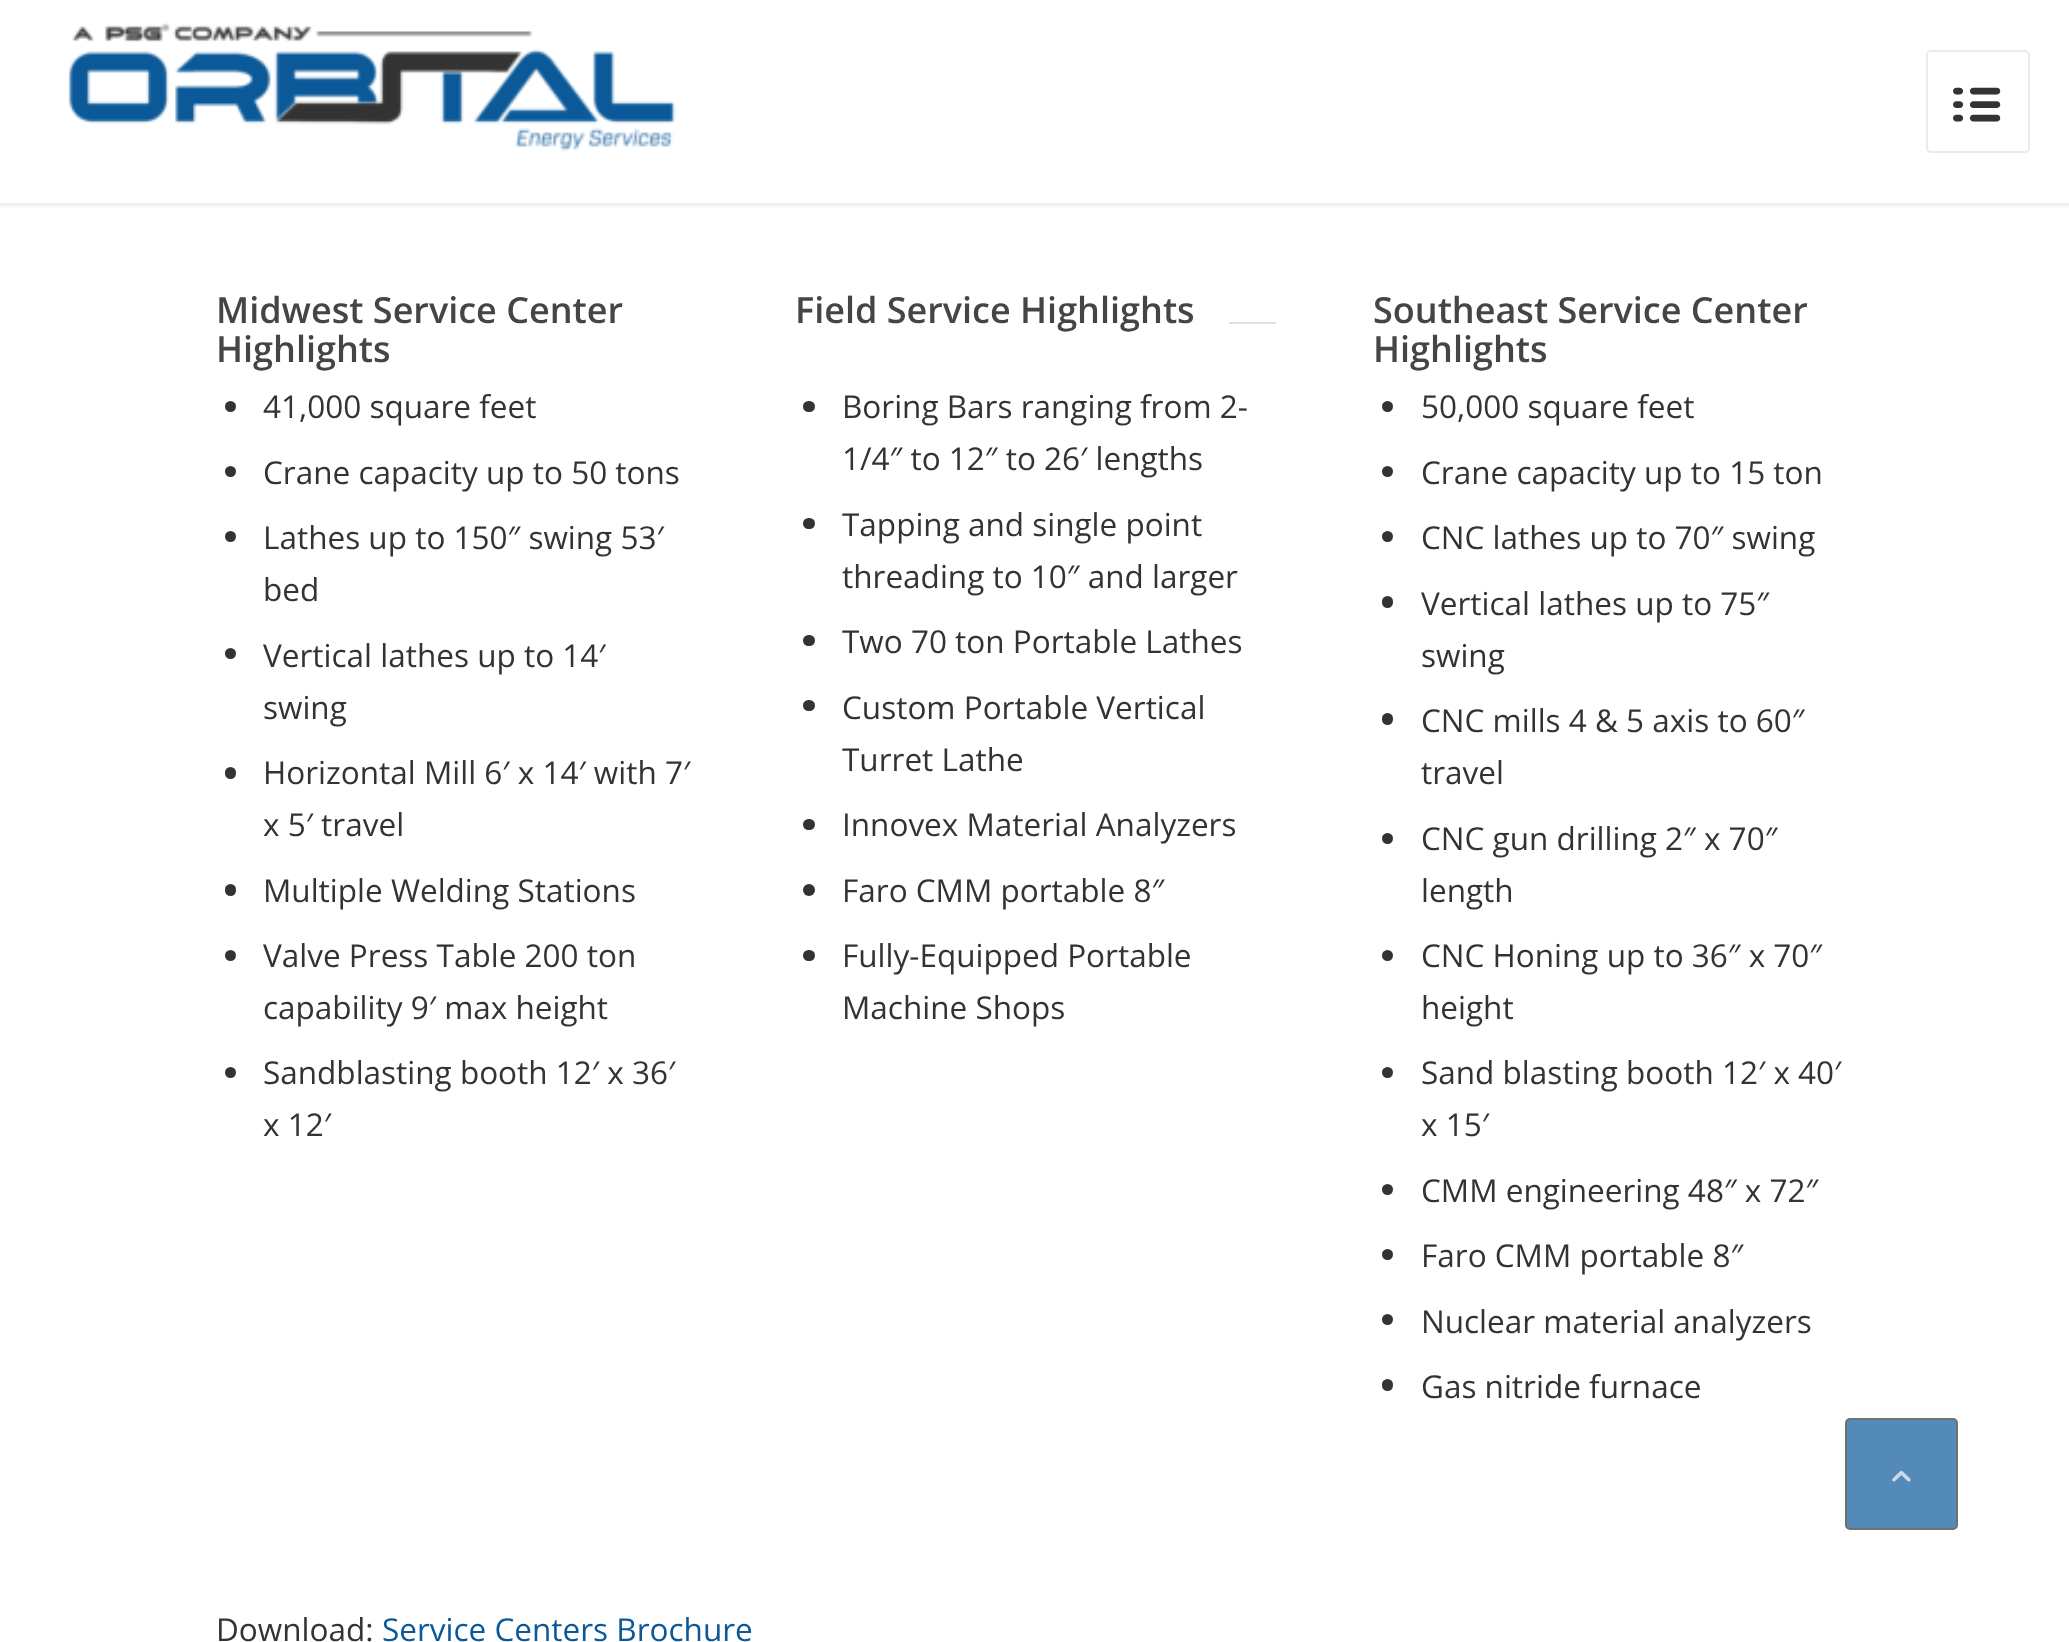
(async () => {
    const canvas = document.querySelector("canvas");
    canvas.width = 2069;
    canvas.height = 1642;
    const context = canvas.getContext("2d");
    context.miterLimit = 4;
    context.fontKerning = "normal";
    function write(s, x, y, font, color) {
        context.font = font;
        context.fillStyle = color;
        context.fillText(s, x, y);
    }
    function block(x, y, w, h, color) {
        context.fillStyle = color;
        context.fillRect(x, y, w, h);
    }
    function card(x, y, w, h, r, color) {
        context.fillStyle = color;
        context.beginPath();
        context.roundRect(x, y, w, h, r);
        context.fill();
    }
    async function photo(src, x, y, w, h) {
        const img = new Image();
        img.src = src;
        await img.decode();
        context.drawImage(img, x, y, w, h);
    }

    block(0, 0, 2069, 1642, "rgb(255, 255, 255)");
    context.fillStyle = "rgba(0, 0, 0, 0.1)";
    context.filter = "blur(2px)";
    context.beginPath();
    context.rect(-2, -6, 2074, 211);
    context.fill();
    context.filter = "none";
    block(0, 0, 2069, 203, "rgb(255, 255, 255)");
    await photo("media/1.png", 68, 22, 608, 130);
    context.beginPath();
    context.roundRect(1927, 51, 102, 101, 4);
    context.strokeStyle = "rgb(235, 235, 235)";
    context.lineWidth = 2;
    context.stroke();
    await photo("media/2.png", 1953, 87, 48, 35);
    write("Midwest Service Center", 216, 323, "600 36px Open Sans", "rgb(69, 69, 69)");
    write("Highlights", 216, 362, "600 36px Open Sans", "rgb(69, 69, 69)");
    context.fillStyle = "rgb(51, 51, 51)";
    context.beginPath();
    context.arc(230.5, 406.5, 5.5, 0, Math.PI * 2);
    context.fill();
    write("41,000 square feet", 263, 418, "31.5px Open Sans", "rgb(51, 51, 51)");
    context.beginPath();
    context.arc(230.5, 471.5, 5.5, 0, Math.PI * 2);
    context.fill();
    write("Crane capacity up to 50 tons", 263, 484, "31.5px Open Sans", "rgb(51, 51, 51)");
    context.beginPath();
    context.arc(230.5, 536.5, 5.5, 0, Math.PI * 2);
    context.fill();
    write("Lathes up to 150″ swing 53′", 263, 549, "31.5px Open Sans", "rgb(51, 51, 51)");
    write("bed", 263, 601, "31.5px Open Sans", "rgb(51, 51, 51)");
    context.beginPath();
    context.arc(230.5, 653.5, 5.5, 0, Math.PI * 2);
    context.fill();
    write("Vertical lathes up to 14′", 263, 667, "31.5px Open Sans", "rgb(51, 51, 51)");
    write("swing", 263, 719, "31.5px Open Sans", "rgb(51, 51, 51)");
    card(225, 767, 11, 12, 5.5, "rgb(51, 51, 51)");
    write("Horizontal Mill 6′ x 14′ with 7′", 263, 784, "31.5px Open Sans", "rgb(51, 51, 51)");
    write("x 5′ travel", 263, 836, "31.5px Open Sans", "rgb(51, 51, 51)");
    card(225, 884, 11, 12, 5.5, "rgb(51, 51, 51)");
    write("Multiple Welding Stations", 263, 902, "31.5px Open Sans", "rgb(51, 51, 51)");
    context.beginPath();
    context.arc(230.5, 955.5, 5.5, 0, Math.PI * 2);
    context.fill();
    write("Valve Press Table 200 ton", 263, 967, "31.5px Open Sans", "rgb(51, 51, 51)");
    write("capability 9′ max height", 263, 1019, "31.5px Open Sans", "rgb(51, 51, 51)");
    context.beginPath();
    context.arc(230.5, 1072.5, 5.5, 0, Math.PI * 2);
    context.fill();
    write("Sandblasting booth 12′ x 36′", 263, 1084, "31.5px Open Sans", "rgb(51, 51, 51)");
    write("x 12′", 263, 1136, "31.5px Open Sans", "rgb(51, 51, 51)");
    write("Field Service Highlights", 795, 323, "600 36px Open Sans", "rgb(69, 69, 69)");
    block(1229, 322, 47, 2, "rgb(224, 224, 224)");
    card(803, 401, 12, 11, 5.5, "rgb(51, 51, 51)");
    write("Boring Bars ranging from 2-", 842, 418, "31.5px Open Sans", "rgb(51, 51, 51)");
    write("1/4″ to 12″ to 26′ lengths", 842, 470, "31.5px Open Sans", "rgb(51, 51, 51)");
    card(803, 518, 12, 11, 5.5, "rgb(51, 51, 51)");
    write("Tapping and single point", 842, 536, "31.5px Open Sans", "rgb(51, 51, 51)");
    write("threading to 10″ and larger", 842, 588, "31.5px Open Sans", "rgb(51, 51, 51)");
    card(803, 635, 12, 11, 5.5, "rgb(51, 51, 51)");
    write("Two 70 ton Portable Lathes", 842, 653, "31.5px Open Sans", "rgb(51, 51, 51)");
    card(803, 700, 12, 11, 5.5, "rgb(51, 51, 51)");
    write("Custom Portable Vertical", 842, 719, "31.5px Open Sans", "rgb(51, 51, 51)");
    write("Turret Lathe", 842, 771, "31.5px Open Sans", "rgb(51, 51, 51)");
    card(803, 819, 12, 11, 5.5, "rgb(51, 51, 51)");
    write("Innovex Material Analyzers", 842, 836, "31.5px Open Sans", "rgb(51, 51, 51)");
    context.beginPath();
    context.arc(809, 890, 6, 0, Math.PI * 2);
    context.fill();
    write("Faro CMM portable 8″", 842, 902, "31.5px Open Sans", "rgb(51, 51, 51)");
    card(803, 950, 12, 11, 5.5, "rgb(51, 51, 51)");
    write("Fully-Equipped Portable", 842, 967, "31.5px Open Sans", "rgb(51, 51, 51)");
    write("Machine Shops", 842, 1019, "31.5px Open Sans", "rgb(51, 51, 51)");
    write("Southeast Service Center", 1373, 323, "600 36px Open Sans", "rgb(69, 69, 69)");
    write("Highlights", 1373, 362, "600 36px Open Sans", "rgb(69, 69, 69)");
    context.fillStyle = "rgb(51, 51, 51)";
    context.beginPath();
    context.arc(1387.5, 406.5, 5.5, 0, Math.PI * 2);
    context.fill();
    write("50,000 square feet", 1421, 418, "31.5px Open Sans", "rgb(51, 51, 51)");
    context.beginPath();
    context.arc(1387.5, 471.5, 5.5, 0, Math.PI * 2);
    context.fill();
    write("Crane capacity up to 15 ton", 1421, 484, "31.5px Open Sans", "rgb(51, 51, 51)");
    context.beginPath();
    context.arc(1387.5, 536.5, 5.5, 0, Math.PI * 2);
    context.fill();
    write("CNC lathes up to 70″ swing", 1421, 549, "31.5px Open Sans", "rgb(51, 51, 51)");
    card(1382, 596, 11, 12, 5.5, "rgb(51, 51, 51)");
    write("Vertical lathes up to 75″", 1421, 615, "31.5px Open Sans", "rgb(51, 51, 51)");
    write("swing", 1421, 667, "31.5px Open Sans", "rgb(51, 51, 51)");
    card(1382, 713, 11, 12, 5.5, "rgb(51, 51, 51)");
    write("CNC mills 4 & 5 axis to 60″", 1421, 732, "31.5px Open Sans", "rgb(51, 51, 51)");
    write("travel", 1421, 784, "31.5px Open Sans", "rgb(51, 51, 51)");
    context.beginPath();
    context.arc(1387.5, 838.5, 5.5, 0, Math.PI * 2);
    context.fill();
    write("CNC gun drilling 2″ x 70″", 1421, 850, "31.5px Open Sans", "rgb(51, 51, 51)");
    write("length", 1421, 902, "31.5px Open Sans", "rgb(51, 51, 51)");
    context.beginPath();
    context.arc(1387.5, 955.5, 5.5, 0, Math.PI * 2);
    context.fill();
    write("CNC Honing up to 36″ x 70″", 1421, 967, "31.5px Open Sans", "rgb(51, 51, 51)");
    write("height", 1421, 1019, "31.5px Open Sans", "rgb(51, 51, 51)");
    context.beginPath();
    context.arc(1387.5, 1072.5, 5.5, 0, Math.PI * 2);
    context.fill();
    write("Sand blasting booth 12′ x 40′", 1421, 1084, "31.5px Open Sans", "rgb(51, 51, 51)");
    write("x 15′", 1421, 1136, "31.5px Open Sans", "rgb(51, 51, 51)");
    context.beginPath();
    context.arc(1387.5, 1189.5, 5.5, 0, Math.PI * 2);
    context.fill();
    write("CMM engineering 48″ x 72″", 1421, 1202, "31.5px Open Sans", "rgb(51, 51, 51)");
    context.beginPath();
    context.arc(1387.5, 1254.5, 5.5, 0, Math.PI * 2);
    context.fill();
    write("Faro CMM portable 8″", 1421, 1267, "31.5px Open Sans", "rgb(51, 51, 51)");
    context.beginPath();
    context.arc(1387.5, 1319.5, 5.5, 0, Math.PI * 2);
    context.fill();
    write("Nuclear material analyzers", 1421, 1333, "31.5px Open Sans", "rgb(51, 51, 51)");
    card(1382, 1379, 11, 12, 5.5, "rgb(51, 51, 51)");
    write("Gas nitride furnace", 1421, 1398, "31.5px Open Sans", "rgb(51, 51, 51)");
    write("Download:", 216, 1641, "31.5px Open Sans", "rgb(51, 51, 51)");
    write("Service Centers Brochure", 382, 1641, "31.5px Open Sans", "rgb(11, 88, 152)");
    context.fillStyle = "rgb(84, 138, 183)";
    context.beginPath();
    context.roundRect(1846, 1419, 111, 110, 4);
    context.fill();
    context.strokeStyle = "rgb(112, 112, 112)";
    context.stroke();
    await photo("media/3.png", 1892, 1470, 19, 12);
})();
